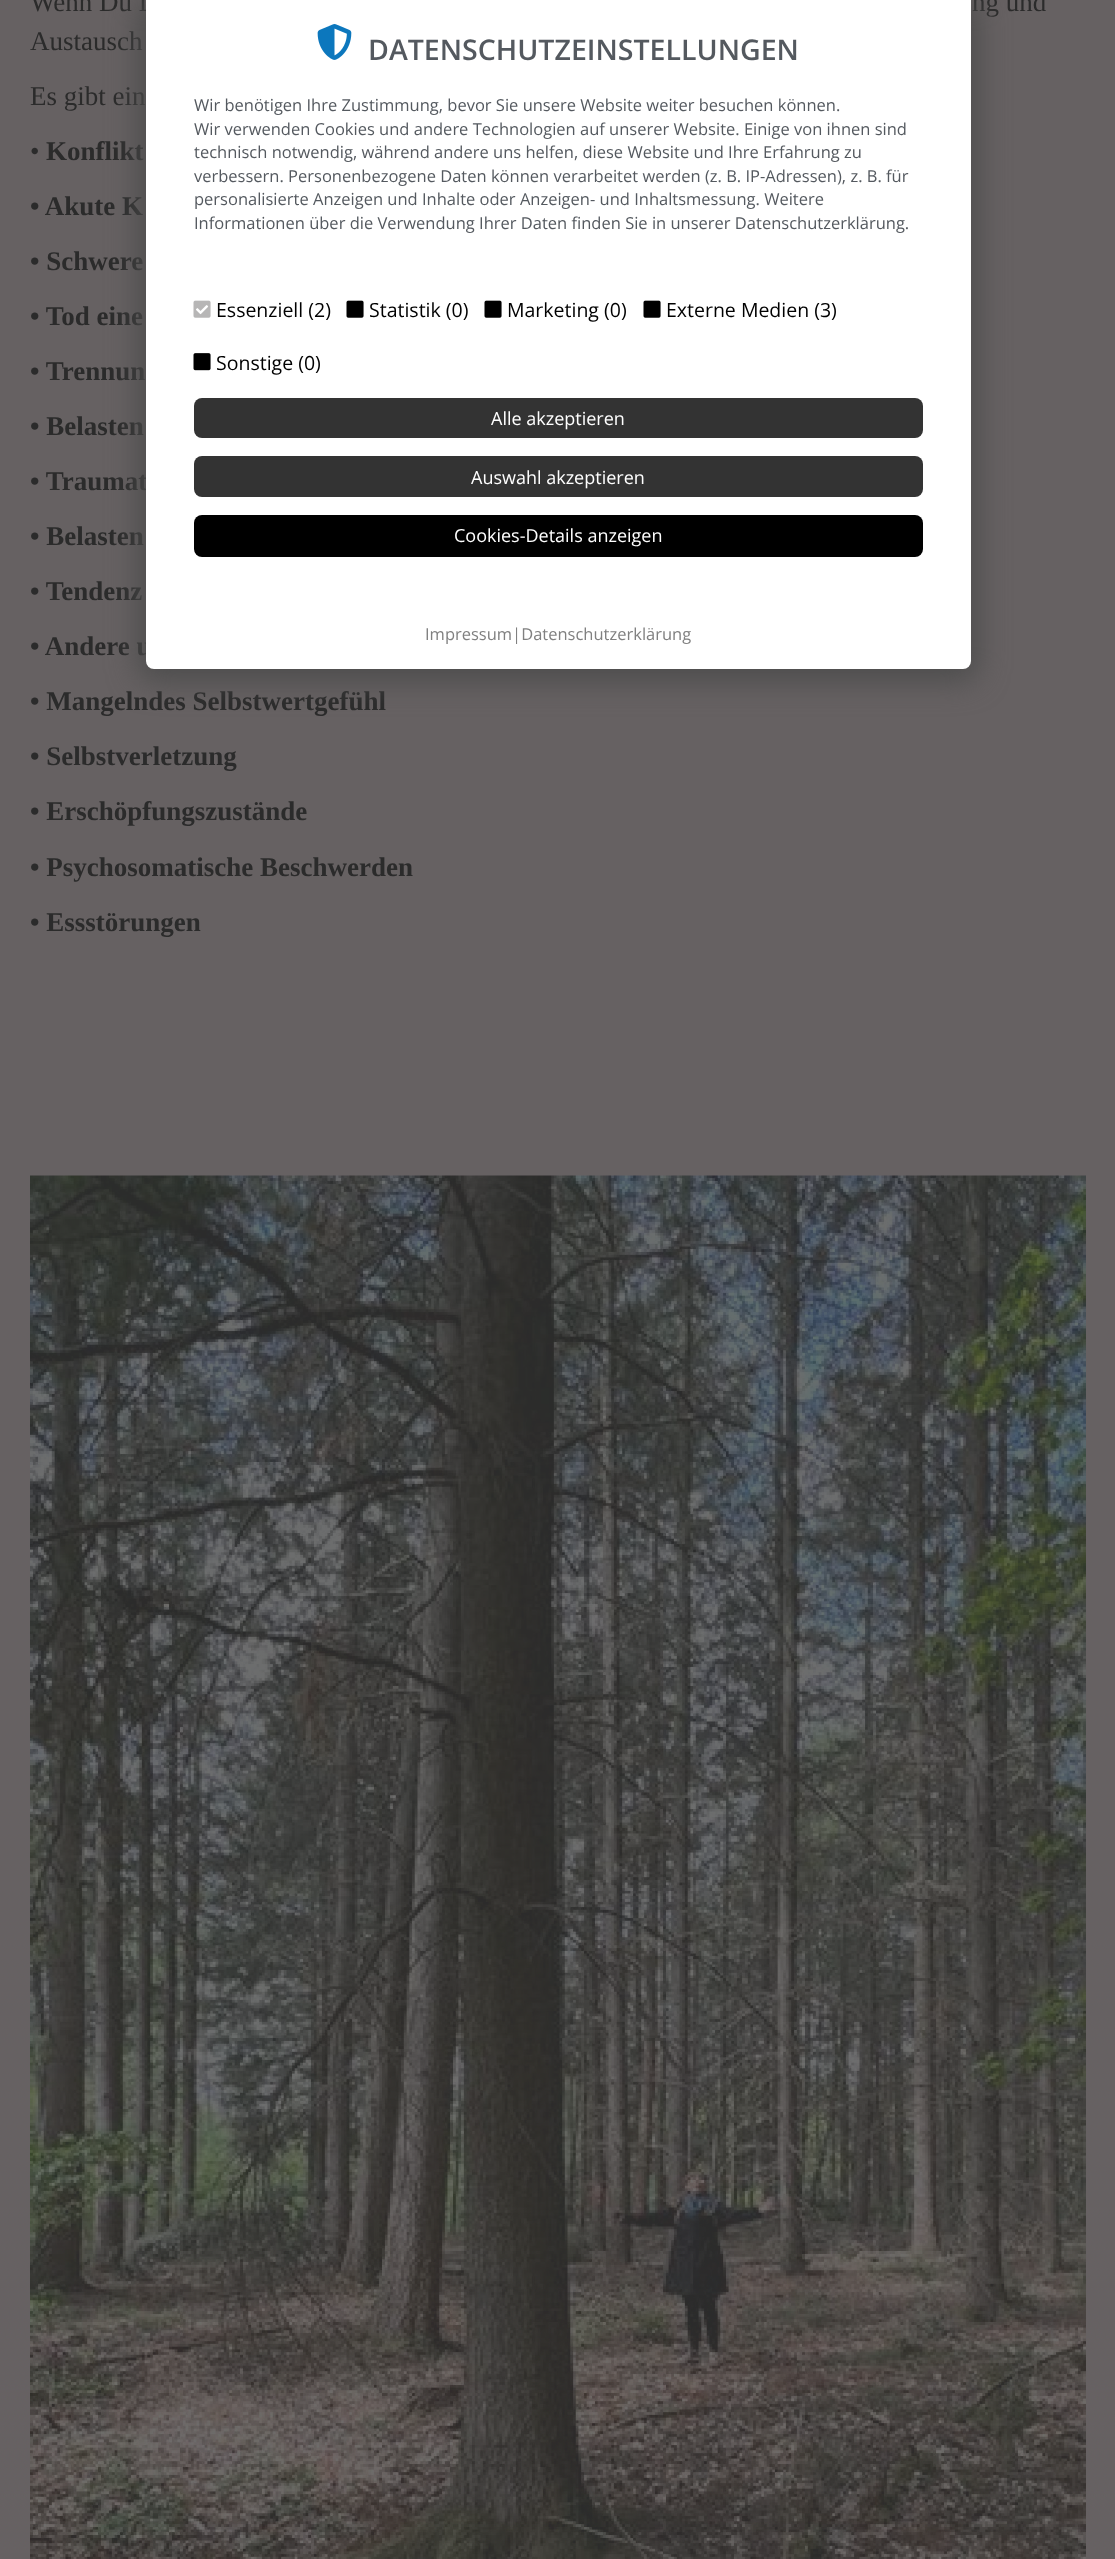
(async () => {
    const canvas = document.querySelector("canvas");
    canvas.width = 1115;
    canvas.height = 2559;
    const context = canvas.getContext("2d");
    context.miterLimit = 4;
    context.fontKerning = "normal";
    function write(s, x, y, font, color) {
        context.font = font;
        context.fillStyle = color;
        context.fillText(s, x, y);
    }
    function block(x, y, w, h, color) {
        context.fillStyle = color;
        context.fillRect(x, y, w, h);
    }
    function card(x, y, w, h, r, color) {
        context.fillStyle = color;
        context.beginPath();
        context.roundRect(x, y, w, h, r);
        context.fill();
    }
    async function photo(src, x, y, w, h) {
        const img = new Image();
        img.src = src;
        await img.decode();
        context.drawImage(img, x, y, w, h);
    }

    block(0, 0, 1115, 2559, "rgb(102, 97, 98)");
    write("Wenn Du D", 30, 11, "27px Liberation Serif", "rgb(43, 43, 43)");
    write("ng und", 972, 11, "27px Liberation Serif", "rgb(43, 43, 43)");
    write("Austausch", 30, 50, "27px Liberation Serif", "rgb(43, 43, 43)");
    write("Es gibt ein", 30, 105, "27px Liberation Serif", "rgb(43, 43, 43)");
    write("•", 30, 160, "27px Liberation Serif", "rgb(43, 43, 43)");
    write("Konflikt", 46, 160, "bold 27px Liberation Serif", "rgb(43, 43, 43)");
    write("• Akute K", 30, 215, "bold 27px Liberation Serif", "rgb(43, 43, 43)");
    write("• Schwere", 30, 270, "bold 27px Liberation Serif", "rgb(43, 43, 43)");
    write("• Tod eine", 30, 325, "bold 27px Liberation Serif", "rgb(43, 43, 43)");
    write("• Trennun", 30, 380, "bold 27px Liberation Serif", "rgb(43, 43, 43)");
    write("• Belasten", 30, 435, "bold 27px Liberation Serif", "rgb(43, 43, 43)");
    write("• Traumat", 30, 490, "bold 27px Liberation Serif", "rgb(43, 43, 43)");
    write("• Belasten", 30, 545, "bold 27px Liberation Serif", "rgb(43, 43, 43)");
    write("• Tendenz", 30, 600, "bold 27px Liberation Serif", "rgb(43, 43, 43)");
    write("• Andere u", 30, 655, "bold 27px Liberation Serif", "rgb(43, 43, 43)");
    write("• Mangelndes Selbstwertgefühl", 30, 710, "bold 27px Liberation Serif", "rgb(43, 43, 43)");
    write("• Selbstverletzung", 30, 765, "bold 27px Liberation Serif", "rgb(43, 43, 43)");
    write("• Erschöpfungszustände", 30, 820, "bold 27px Liberation Serif", "rgb(43, 43, 43)");
    write("• Psychosomatische Beschwerden", 30, 876, "bold 27px Liberation Serif", "rgb(43, 43, 43)");
    write("• Essstörungen", 30, 931, "bold 27px Liberation Serif", "rgb(43, 43, 43)");
    await photo("media/1.png", 30, 1175, 1056, 1384);
    context.fillStyle = "rgb(76, 76, 76)";
    context.filter = "blur(15px)";
    context.beginPath();
    context.roundRect(138, -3, 840, 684, 15);
    context.fill();
    context.filter = "none";
    context.fillStyle = "rgb(255, 255, 255)";
    context.beginPath();
    context.roundRect(146, 0, 825, 669, [0, 0, 8, 8]);
    context.fill();
    await photo("media/2.png", 317, 24, 35, 36);
    write("DATENSCHUTZEINSTELLUNGEN", 368, 60, "600 28.5px Open Sans", "rgb(84, 89, 95)");
    write("Wir benötigen Ihre Zustimmung, bevor Sie unsere Website weiter besuchen können.", 194, 111, "16.5px Open Sans", "rgb(84, 89, 95)");
    write("Wir verwenden Cookies und andere Technologien auf unserer Website. Einige von ihnen sind", 194, 135, "16.5px Open Sans", "rgb(84, 89, 95)");
    write("technisch notwendig, während andere uns helfen, diese Website und Ihre Erfahrung zu", 194, 158, "16.5px Open Sans", "rgb(84, 89, 95)");
    write("verbessern. Personenbezogene Daten können verarbeitet werden (z. B. IP-Adressen), z. B. für", 194, 182, "16.5px Open Sans", "rgb(84, 89, 95)");
    write("personalisierte Anzeigen und Inhalte oder Anzeigen- und Inhaltsmessung. Weitere", 194, 205, "16.5px Open Sans", "rgb(84, 89, 95)");
    write("Informationen über die Verwendung Ihrer Daten finden Sie in unserer Datenschutzerklärung.", 194, 229, "16.5px Open Sans", "rgb(84, 89, 95)");
    await photo("media/3.png", 193, 300, 18, 18);
    write("Essenziell (2)", 216, 317, "19.5px Open Sans", "rgb(0, 0, 0)");
    await photo("media/4.png", 346, 300, 18, 18);
    write("Statistik (0)", 369, 317, "19.5px Open Sans", "rgb(0, 0, 0)");
    await photo("media/4.png", 484, 300, 18, 18);
    write("Marketing (0)", 507, 317, "19.5px Open Sans", "rgb(0, 0, 0)");
    await photo("media/4.png", 643, 300, 18, 18);
    write("Externe Medien (3)", 666, 317, "19.5px Open Sans", "rgb(0, 0, 0)");
    await photo("media/5.png", 193, 353, 18, 18);
    write("Sonstige (0)", 216, 370, "19.5px Open Sans", "rgb(0, 0, 0)");
    card(194, 398, 729, 40, 8, "rgb(51, 51, 51)");
    write("Alle akzeptieren", 491, 425, "18px Open Sans", "rgb(255, 255, 255)");
    card(194, 456, 729, 41, 8, "rgb(51, 51, 51)");
    write("Auswahl akzeptieren", 471, 484, "18px Open Sans", "rgb(255, 255, 255)");
    card(194, 515, 729, 42, 8, "rgb(0, 0, 0)");
    write("Cookies-Details anzeigen", 454, 542, "18px Open Sans", "rgb(255, 255, 255)");
    write("Impressum|Datenschutzerklärung", 425, 640, "16.5px Open Sans", "rgb(128, 128, 128)");
})();
